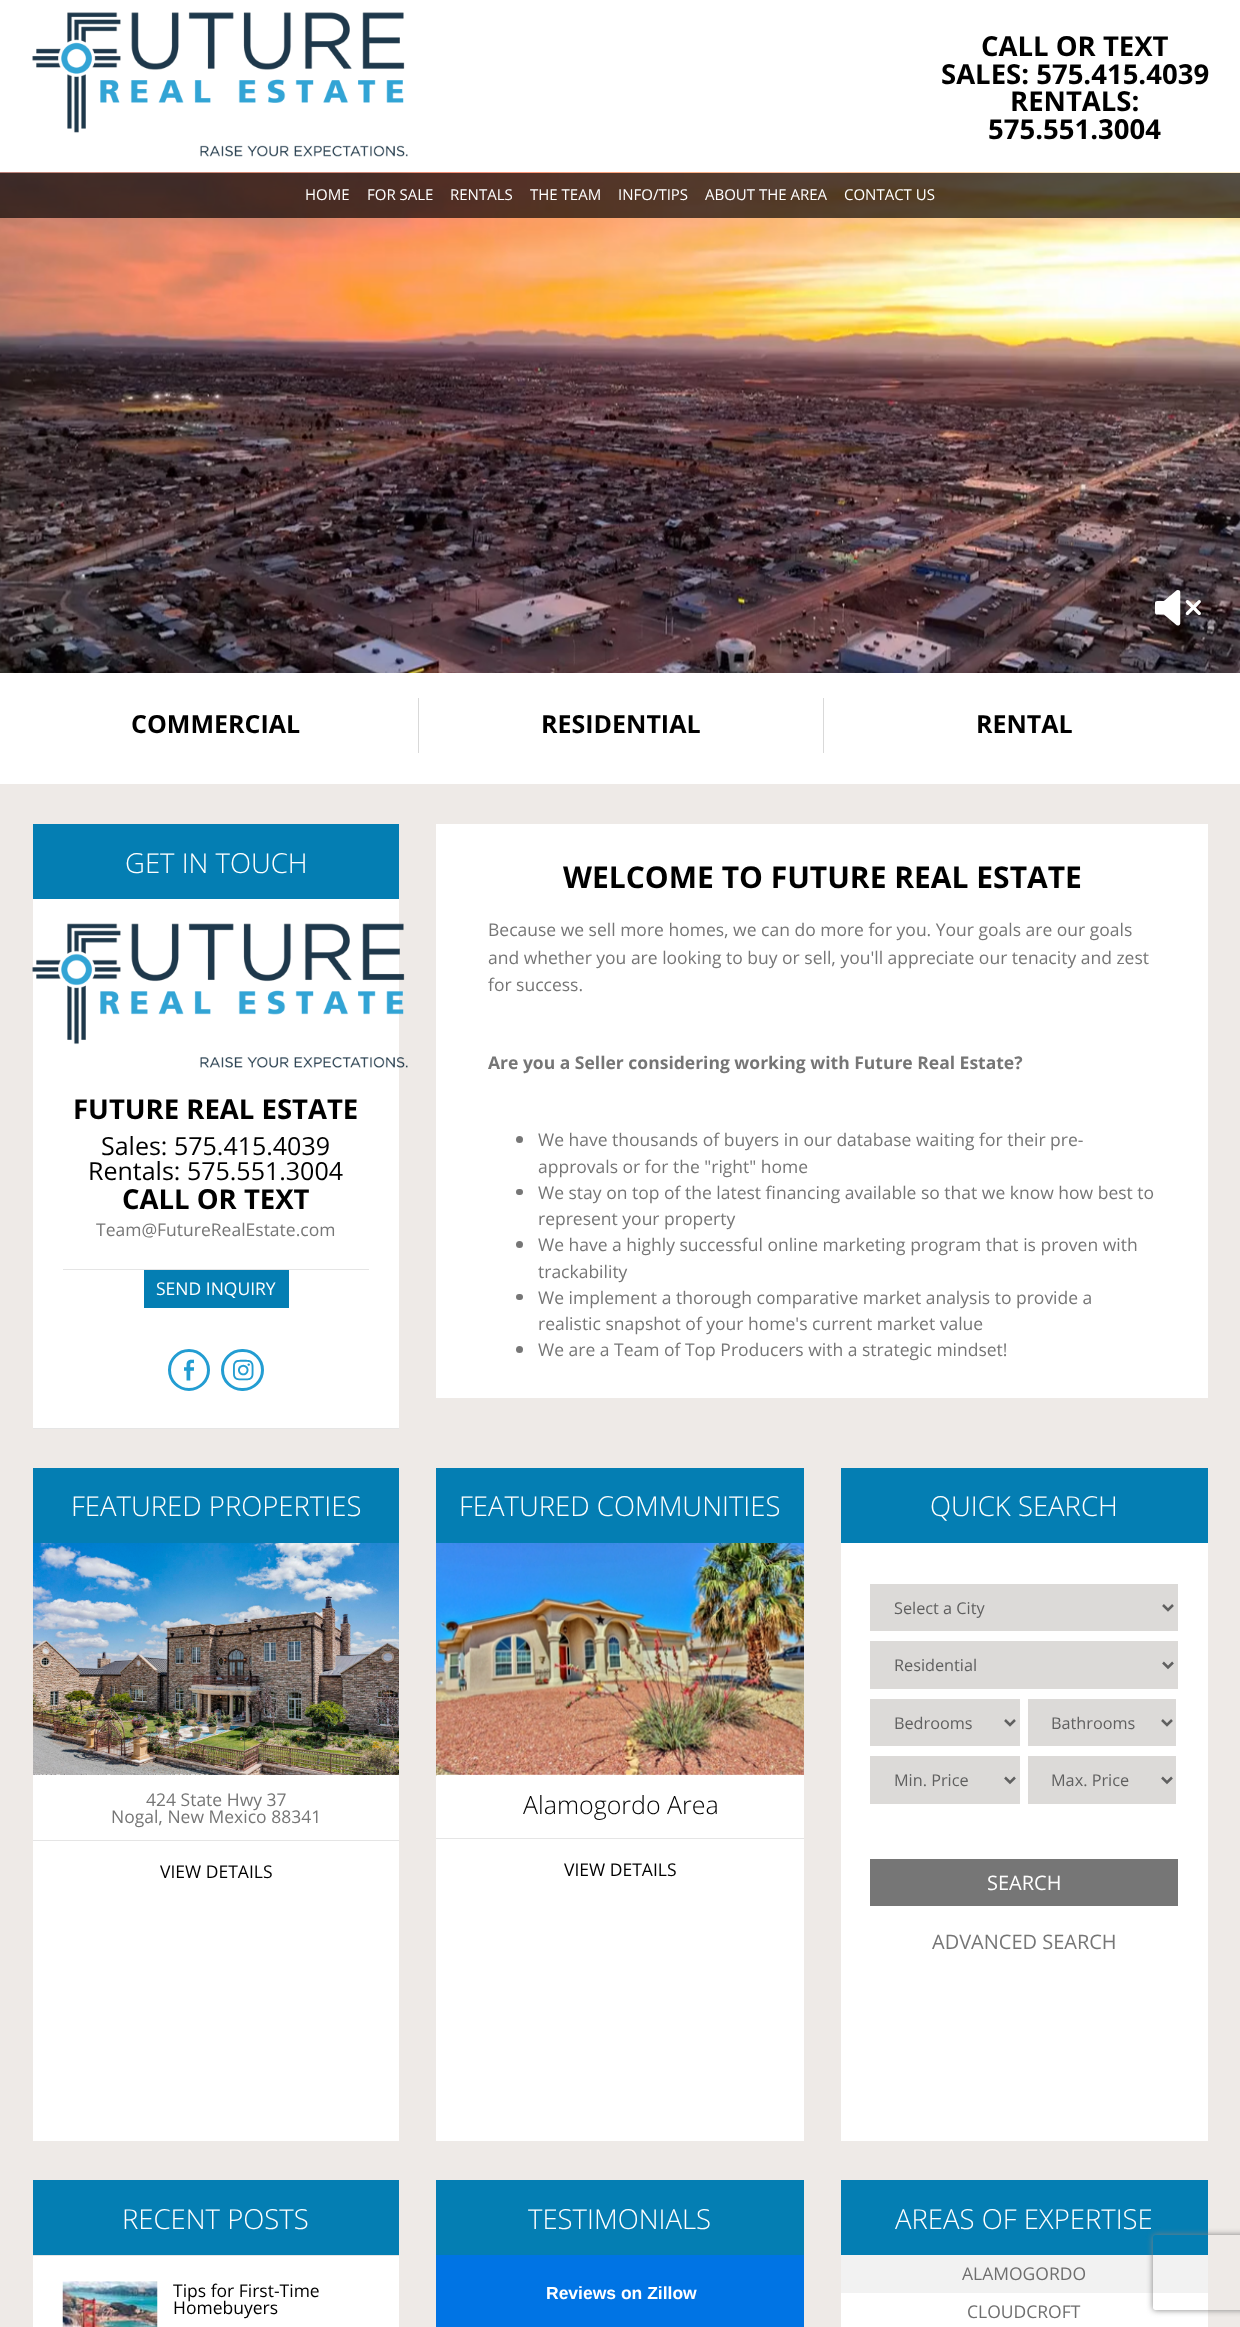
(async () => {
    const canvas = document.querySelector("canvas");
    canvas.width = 1240;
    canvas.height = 2327;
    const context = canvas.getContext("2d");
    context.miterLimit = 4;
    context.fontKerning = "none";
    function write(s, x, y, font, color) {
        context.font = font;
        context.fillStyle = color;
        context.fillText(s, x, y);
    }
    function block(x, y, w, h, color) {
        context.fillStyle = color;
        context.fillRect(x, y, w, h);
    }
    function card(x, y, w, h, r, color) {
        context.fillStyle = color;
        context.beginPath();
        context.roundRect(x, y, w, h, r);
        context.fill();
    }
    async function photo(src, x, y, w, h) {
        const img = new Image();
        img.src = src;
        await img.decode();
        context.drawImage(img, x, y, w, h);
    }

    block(0, 0, 1240, 2327, "rgb(238, 234, 231)");
    block(0, 0, 1240, 172, "rgb(255, 255, 255)");
    await photo("media/1.png", 32, 12, 376, 145);
    write("CALL OR TEXT", 981, 56, "bold 27.5px Open Sans", "rgb(0, 0, 0)");
    write("SALES: 575.415.4039", 941, 84, "bold 27.5px Open Sans", "rgb(0, 0, 0)");
    write("RENTALS:", 1010, 111, "bold 27.5px Open Sans", "rgb(0, 0, 0)");
    write("575.551.3004", 988, 139, "bold 27.5px Open Sans", "rgb(0, 0, 0)");
    await photo("media/2.png", 0, 172, 1240, 501);
    block(0, 173, 1240, 45, "rgba(0, 0, 0, 0.67)");
    write("HOME", 305, 200, "15px Open Sans", "rgb(255, 255, 255)");
    write("FOR SALE", 367, 200, "15px Open Sans", "rgb(255, 255, 255)");
    write("RENTALS", 450, 200, "15px Open Sans", "rgb(255, 255, 255)");
    write("THE TEAM", 530, 200, "15px Open Sans", "rgb(255, 255, 255)");
    write("INFO/TIPS", 618, 200, "15px Open Sans", "rgb(255, 255, 255)");
    write("ABOUT THE AREA", 705, 200, "15px Open Sans", "rgb(255, 255, 255)");
    write("CONTACT US", 844, 200, "15px Open Sans", "rgb(255, 255, 255)");
    write("򰅳", 1155, 625, "40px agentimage", "rgb(255, 255, 255)");
    block(0, 673, 1240, 111, "rgb(255, 255, 255)");
    write("COMMERCIAL", 131, 733, "bold 25px Open Sans", "rgb(0, 0, 0)");
    block(418, 698, 1, 55, "rgb(217, 217, 217)");
    write("RESIDENTIAL", 541, 733, "bold 25px Open Sans", "rgb(0, 0, 0)");
    block(823, 698, 1, 55, "rgb(217, 217, 217)");
    write("RENTAL", 976, 733, "bold 25px Open Sans", "rgb(0, 0, 0)");
    block(33, 899, 366, 529, "rgb(255, 255, 255)");
    block(33, 824, 366, 75, "rgb(4, 126, 179)");
    write("GET IN TOUCH", 125, 873, "300 27.5px Open Sans", "rgb(255, 255, 255)");
    await photo("media/3.png", 32, 923, 376, 145);
    block(33, 1428, 366, 1, "rgb(229, 229, 229)");
    write("FUTURE REAL ESTATE", 73, 1119, "bold 27.5px Open Sans", "rgb(0, 0, 0)");
    write("Sales: 575.415.4039", 101, 1155, "25px Open Sans", "rgb(0, 0, 0)");
    write("Rentals: 575.551.3004", 88, 1180, "25px Open Sans", "rgb(0, 0, 0)");
    block(63, 1269, 306, 1, "rgb(229, 229, 229)");
    write("CALL OR TEXT", 122, 1209, "bold 27.5px Open Sans", "rgb(0, 0, 0)");
    write("Team@FutureRealEstate.com", 96, 1236, "17.5px Open Sans", "rgb(118, 118, 118)");
    block(144, 1270, 145, 38, "rgb(4, 126, 179)");
    write("SEND INQUIRY", 156, 1295, "17.5px Open Sans", "rgb(255, 255, 255)");
    context.beginPath();
    context.arc(189, 1370, 19.5, 0, Math.PI * 2);
    context.strokeStyle = "rgb(35, 157, 210)";
    context.lineWidth = 3;
    context.stroke();
    write("򰄔", 184, 1381, "25px agentimage", "rgb(35, 157, 210)");
    context.beginPath();
    context.roundRect(222.5, 1350.5, 40, 39, 19.5);
    context.stroke();
    write("򰄆", 233, 1381, "25px agentimage", "rgb(35, 157, 210)");
    block(436, 824, 772, 574, "rgb(255, 255, 255)");
    write("WELCOME TO FUTURE REAL ESTATE", 563, 888, "bold 30px Open Sans", "rgb(0, 0, 0)");
    write("Because we sell more homes, we can do more for you. Your goals are our goals", 488, 936, "17.5px Open Sans", "rgb(118, 118, 118)");
    write("and whether you are looking to buy or sell, you'll appreciate our tenacity and zest", 488, 964, "17.5px Open Sans", "rgb(118, 118, 118)");
    write("for success.", 488, 991, "17.5px Open Sans", "rgb(118, 118, 118)");
    write("Are you a Seller considering working with Future Real Estate?", 488, 1069, "bold 17.5px Open Sans", "rgb(118, 118, 118)");
    context.beginPath();
    context.arc(519.5, 1139.5, 3.5, 0, Math.PI * 2);
    context.fill();
    write("We have thousands of buyers in our database waiting for their pre-", 538, 1146, "17.5px Open Sans", "rgb(118, 118, 118)");
    write("approvals or for the \"right\" home", 538, 1173, "17.5px Open Sans", "rgb(118, 118, 118)");
    card(516, 1189, 7, 6, 3, "rgb(118, 118, 118)");
    write("We stay on top of the latest financing available so that we know how best to", 538, 1199, "17.5px Open Sans", "rgb(118, 118, 118)");
    write("represent your property", 538, 1225, "17.5px Open Sans", "rgb(118, 118, 118)");
    context.beginPath();
    context.arc(519.5, 1244.5, 3.5, 0, Math.PI * 2);
    context.fill();
    write("We have a highly successful online marketing program that is proven with", 538, 1251, "17.5px Open Sans", "rgb(118, 118, 118)");
    write("trackability", 538, 1278, "17.5px Open Sans", "rgb(118, 118, 118)");
    card(516, 1294, 7, 6, 3, "rgb(118, 118, 118)");
    write("We implement a thorough comparative market analysis to provide a", 538, 1304, "17.5px Open Sans", "rgb(118, 118, 118)");
    write("realistic snapshot of your home's current market value", 538, 1330, "17.5px Open Sans", "rgb(118, 118, 118)");
    context.beginPath();
    context.arc(519.5, 1349.5, 3.5, 0, Math.PI * 2);
    context.fill();
    write("We are a Team of Top Producers with a strategic mindset!", 538, 1356, "17.5px Open Sans", "rgb(118, 118, 118)");
    block(33, 1774, 366, 367, "rgb(255, 255, 255)");
    block(33, 1468, 366, 75, "rgb(4, 126, 179)");
    write("FEATURED PROPERTIES", 71, 1516, "300 27.5px Open Sans", "rgb(255, 255, 255)");
    await photo("media/4.png", 33, 1543, 366, 232);
    block(33, 1840, 366, 1, "rgb(229, 229, 229)");
    write("424 State Hwy 37", 146, 1806, "17.5px Open Sans", "rgb(118, 118, 118)");
    write("Nogal, New Mexico 88341", 111, 1823, "17.5px Open Sans", "rgb(118, 118, 118)");
    write("VIEW DETAILS", 160, 1878, "17.5px Open Sans", "rgb(0, 0, 0)");
    block(436, 1774, 368, 367, "rgb(255, 255, 255)");
    block(436, 1468, 368, 75, "rgb(4, 126, 179)");
    write("FEATURED COMMUNITIES", 459, 1516, "300 27.5px Open Sans", "rgb(255, 255, 255)");
    await photo("media/5.png", 436, 1774, 1, 2);
    await photo("media/6.png", 436, 1543, 368, 232);
    block(436, 1838, 368, 1, "rgb(229, 229, 229)");
    write("Alamogordo Area", 523, 1814, "300 25px Open Sans", "rgb(0, 0, 0)");
    write("VIEW DETAILS", 564, 1876, "17.5px Open Sans", "rgb(0, 0, 0)");
    block(841, 1543, 367, 598, "rgb(255, 255, 255)");
    block(841, 1468, 367, 75, "rgb(4, 126, 179)");
    write("QUICK SEARCH", 930, 1516, "300 27.5px Open Sans", "rgb(255, 255, 255)");
    block(870, 1584, 308, 47, "rgb(220, 218, 216)");
    context.beginPath();
    context.moveTo(1163, 1605);
    context.lineTo(1168, 1610);
    context.lineTo(1173, 1605);
    context.strokeStyle = "rgb(96, 96, 96)";
    context.lineWidth = 2.5;
    context.stroke();
    write("Select a City", 894, 1614, "16.25px Open Sans", "rgb(96, 96, 96)");
    block(870, 1641, 308, 48, "rgb(220, 218, 216)");
    context.beginPath();
    context.moveTo(1163, 1662.5);
    context.lineTo(1168, 1667.5);
    context.lineTo(1173, 1662.5);
    context.stroke();
    write("Residential", 894, 1671, "16.25px Open Sans", "rgb(96, 96, 96)");
    block(870, 1699, 150, 47, "rgb(220, 218, 216)");
    context.beginPath();
    context.moveTo(1005, 1720);
    context.lineTo(1010, 1725);
    context.lineTo(1015, 1720);
    context.stroke();
    write("Bedrooms", 894, 1729, "16.25px Open Sans", "rgb(96, 96, 96)");
    block(1028, 1699, 148, 47, "rgb(220, 218, 216)");
    context.beginPath();
    context.moveTo(1162, 1720);
    context.lineTo(1167, 1725);
    context.lineTo(1172, 1720);
    context.stroke();
    write("Bathrooms", 1051, 1729, "16.25px Open Sans", "rgb(96, 96, 96)");
    block(870, 1756, 150, 48, "rgb(220, 218, 216)");
    context.beginPath();
    context.moveTo(1005, 1777.5);
    context.lineTo(1010, 1782.5);
    context.lineTo(1015, 1777.5);
    context.stroke();
    write("Min. Price", 894, 1786, "16.25px Open Sans", "rgb(96, 96, 96)");
    block(1028, 1756, 148, 48, "rgb(220, 218, 216)");
    context.beginPath();
    context.moveTo(1162, 1777.5);
    context.lineTo(1167, 1782.5);
    context.lineTo(1172, 1777.5);
    context.stroke();
    write("Max. Price", 1051, 1786, "16.25px Open Sans", "rgb(96, 96, 96)");
    block(870, 1859, 308, 47, "rgb(118, 118, 118)");
    write("SEARCH", 987, 1890, "20px Open Sans", "rgb(255, 255, 255)");
    write("ADVANCED SEARCH", 932, 1949, "20px Open Sans", "rgb(118, 118, 118)");
    block(33, 2256, 366, 71, "rgb(255, 255, 255)");
    block(33, 2180, 366, 75, "rgb(4, 126, 179)");
    write("RECENT POSTS", 122, 2229, "300 27.5px Open Sans", "rgb(255, 255, 255)");
    block(33, 2255, 366, 1, "rgb(229, 229, 229)");
    await photo("media/7.png", 62, 2281, 96, 46);
    write("Tips for First-Time", 173, 2297, "17.5px Open Sans", "rgb(0, 0, 0)");
    write("Homebuyers", 173, 2314, "17.5px Open Sans", "rgb(0, 0, 0)");
    block(436, 2180, 368, 75, "rgb(4, 126, 179)");
    write("TESTIMONIALS", 528, 2229, "300 27.5px Open Sans", "rgb(255, 255, 255)");
    block(436, 2255, 368, 72, "rgb(0, 116, 228)");
    write("Reviews on Zillow", 546, 2299, "bold 17.5px Liberation Sans", "rgb(255, 255, 255)");
    block(841, 2293, 367, 34, "rgb(255, 255, 255)");
    block(841, 2180, 367, 75, "rgb(4, 126, 179)");
    write("AREAS OF EXPERTISE", 895, 2229, "300 27.5px Open Sans", "rgb(255, 255, 255)");
    block(841, 2255, 367, 38, "rgb(242, 242, 242)");
    write("ALAMOGORDO", 962, 2280, "17.5px Open Sans", "rgb(110, 110, 110)");
    write("CLOUDCROFT", 967, 2318, "17.5px Open Sans", "rgb(110, 110, 110)");
    context.save();
    context.beginPath();
    context.moveTo(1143, 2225);
    context.lineTo(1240, 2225);
    context.lineTo(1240, 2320);
    context.lineTo(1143, 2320);
    context.closePath();
    context.moveTo(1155.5, 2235);
    context.lineTo(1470.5, 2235);
    context.bezierCurveTo(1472, 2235, 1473, 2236, 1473, 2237.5);
    context.lineTo(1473, 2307.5);
    context.bezierCurveTo(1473, 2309, 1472, 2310, 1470.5, 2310);
    context.lineTo(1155.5, 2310);
    context.bezierCurveTo(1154, 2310, 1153, 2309, 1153, 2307.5);
    context.lineTo(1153, 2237.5);
    context.bezierCurveTo(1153, 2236, 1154, 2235, 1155.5, 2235);
    context.closePath();
    context.clip("evenodd");
    context.fillStyle = "rgb(128, 128, 128)";
    context.filter = "blur(3px)";
    context.beginPath();
    context.roundRect(1153, 2235, 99, 75, 2.5);
    context.fill();
    context.filter = "none";
    context.restore();
})();
